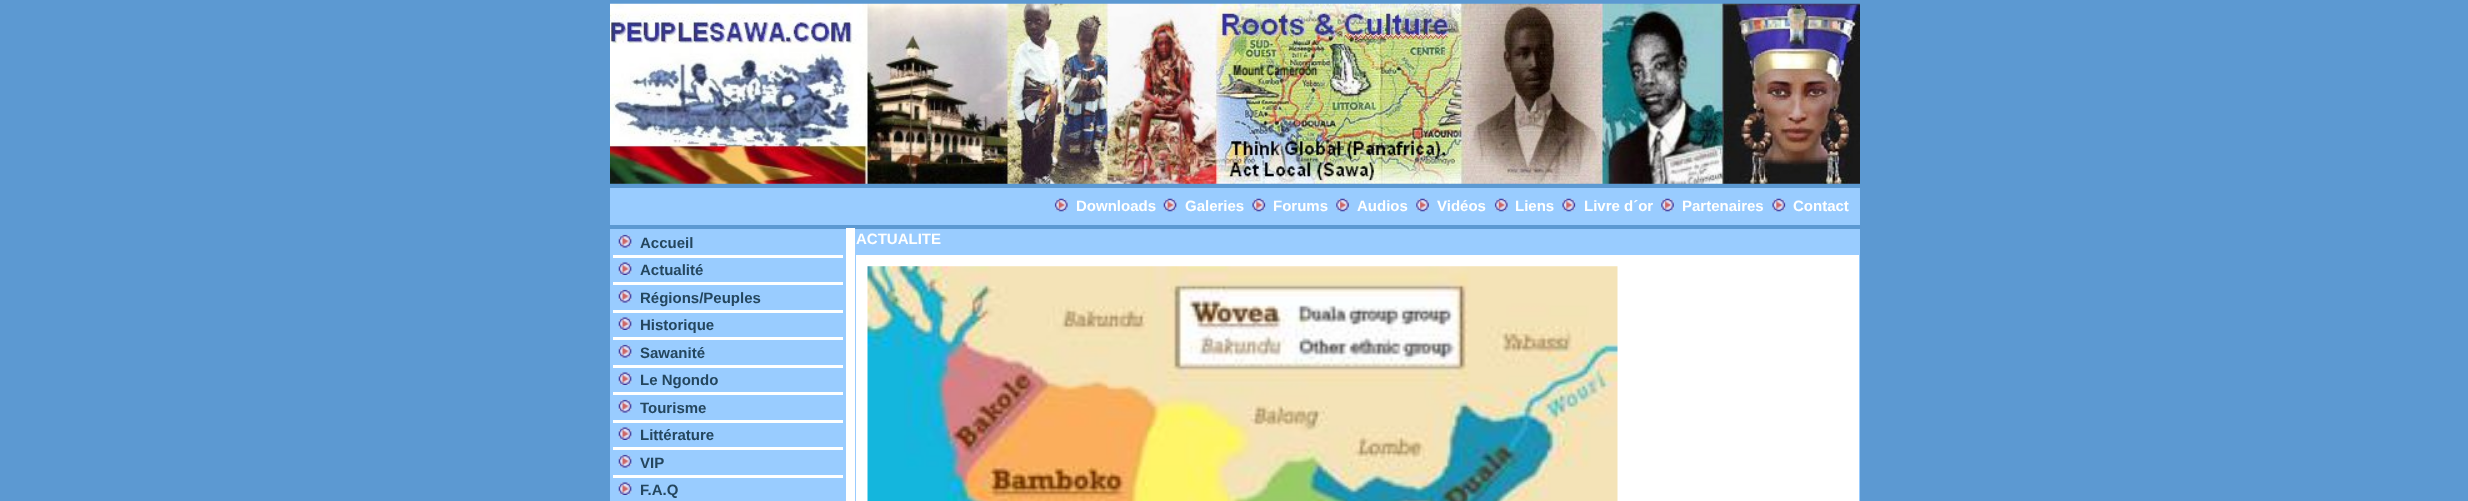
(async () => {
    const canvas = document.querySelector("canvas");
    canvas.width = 2468;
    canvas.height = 501;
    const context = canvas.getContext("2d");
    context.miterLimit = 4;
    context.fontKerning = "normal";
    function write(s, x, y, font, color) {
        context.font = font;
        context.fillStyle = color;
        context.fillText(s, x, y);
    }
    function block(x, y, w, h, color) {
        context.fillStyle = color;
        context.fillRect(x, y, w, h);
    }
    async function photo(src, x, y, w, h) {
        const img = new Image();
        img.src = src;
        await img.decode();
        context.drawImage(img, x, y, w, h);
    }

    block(0, 0, 2468, 501, "rgb(92, 153, 210)");
    await photo("media/1.png", 610, 3, 1250, 181);
    block(610, 188, 1250, 37, "rgb(153, 204, 255)");
    await photo("media/2.png", 1054, 198, 14, 14);
    write("Downloads", 1076, 211, "bold 15px Liberation Sans", "rgb(255, 255, 255)");
    await photo("media/3.png", 1163, 198, 14, 14);
    write("Galeries", 1185, 211, "bold 15px Liberation Sans", "rgb(255, 255, 255)");
    await photo("media/4.png", 1252, 198, 14, 14);
    write("Forums", 1273, 211, "bold 15px Liberation Sans", "rgb(255, 255, 255)");
    await photo("media/5.png", 1336, 198, 13, 14);
    write("Audios", 1357, 211, "bold 15px Liberation Sans", "rgb(255, 255, 255)");
    await photo("media/5.png", 1416, 198, 13, 14);
    write("Vidéos", 1437, 211, "bold 15px Liberation Sans", "rgb(255, 255, 255)");
    await photo("media/2.png", 1494, 198, 14, 14);
    write("Liens", 1515, 211, "bold 15px Liberation Sans", "rgb(255, 255, 255)");
    await photo("media/4.png", 1562, 198, 14, 14);
    write("Livre d´or", 1584, 211, "bold 15px Liberation Sans", "rgb(255, 255, 255)");
    await photo("media/5.png", 1661, 198, 13, 14);
    write("Partenaires", 1682, 211, "bold 15px Liberation Sans", "rgb(255, 255, 255)");
    await photo("media/4.png", 1772, 198, 14, 14);
    write("Contact", 1793, 211, "bold 15px Liberation Sans", "rgb(255, 255, 255)");
    block(610, 229, 236, 272, "rgb(153, 204, 255)");
    await photo("media/6.png", 618, 234, 14, 14);
    write("Accueil", 640, 248, "bold 15px Liberation Sans", "rgb(36, 70, 94)");
    block(613, 255, 230, 3, "rgb(255, 255, 255)");
    await photo("media/7.png", 618, 262, 14, 13);
    write("Actualité", 640, 275, "bold 15px Liberation Sans", "rgb(36, 70, 94)");
    block(613, 282, 230, 3, "rgb(255, 255, 255)");
    await photo("media/8.png", 618, 289, 14, 14);
    write("Régions/Peuples", 640, 303, "bold 15px Liberation Sans", "rgb(36, 70, 94)");
    block(613, 310, 230, 3, "rgb(255, 255, 255)");
    await photo("media/7.png", 618, 317, 14, 13);
    write("Historique", 640, 330, "bold 15px Liberation Sans", "rgb(36, 70, 94)");
    block(613, 337, 230, 3, "rgb(255, 255, 255)");
    await photo("media/6.png", 618, 344, 14, 14);
    write("Sawanité", 640, 358, "bold 15px Liberation Sans", "rgb(36, 70, 94)");
    block(613, 365, 230, 3, "rgb(255, 255, 255)");
    await photo("media/7.png", 618, 372, 14, 13);
    write("Le Ngondo", 640, 385, "bold 15px Liberation Sans", "rgb(36, 70, 94)");
    block(613, 392, 230, 3, "rgb(255, 255, 255)");
    await photo("media/6.png", 618, 399, 14, 14);
    write("Tourisme", 640, 413, "bold 15px Liberation Sans", "rgb(36, 70, 94)");
    block(613, 420, 230, 3, "rgb(255, 255, 255)");
    await photo("media/7.png", 618, 427, 14, 13);
    write("Littérature", 640, 440, "bold 15px Liberation Sans", "rgb(36, 70, 94)");
    block(613, 447, 230, 3, "rgb(255, 255, 255)");
    await photo("media/6.png", 618, 454, 14, 14);
    write("VIP", 640, 468, "bold 15px Liberation Sans", "rgb(36, 70, 94)");
    block(613, 475, 230, 3, "rgb(255, 255, 255)");
    await photo("media/7.png", 618, 482, 14, 13);
    write("F.A.Q", 640, 495, "bold 15px Liberation Sans", "rgb(36, 70, 94)");
    block(846, 228, 9, 273, "rgb(255, 255, 255)");
    block(855, 229, 1005, 272, "rgb(153, 204, 255)");
    block(856, 255, 1003, 246, "rgb(255, 255, 255)");
    write("ACTUALITE", 856, 244, "bold 15px Liberation Sans", "rgb(255, 255, 255)");
    await photo("media/9.png", 867, 266, 751, 235);
})();
